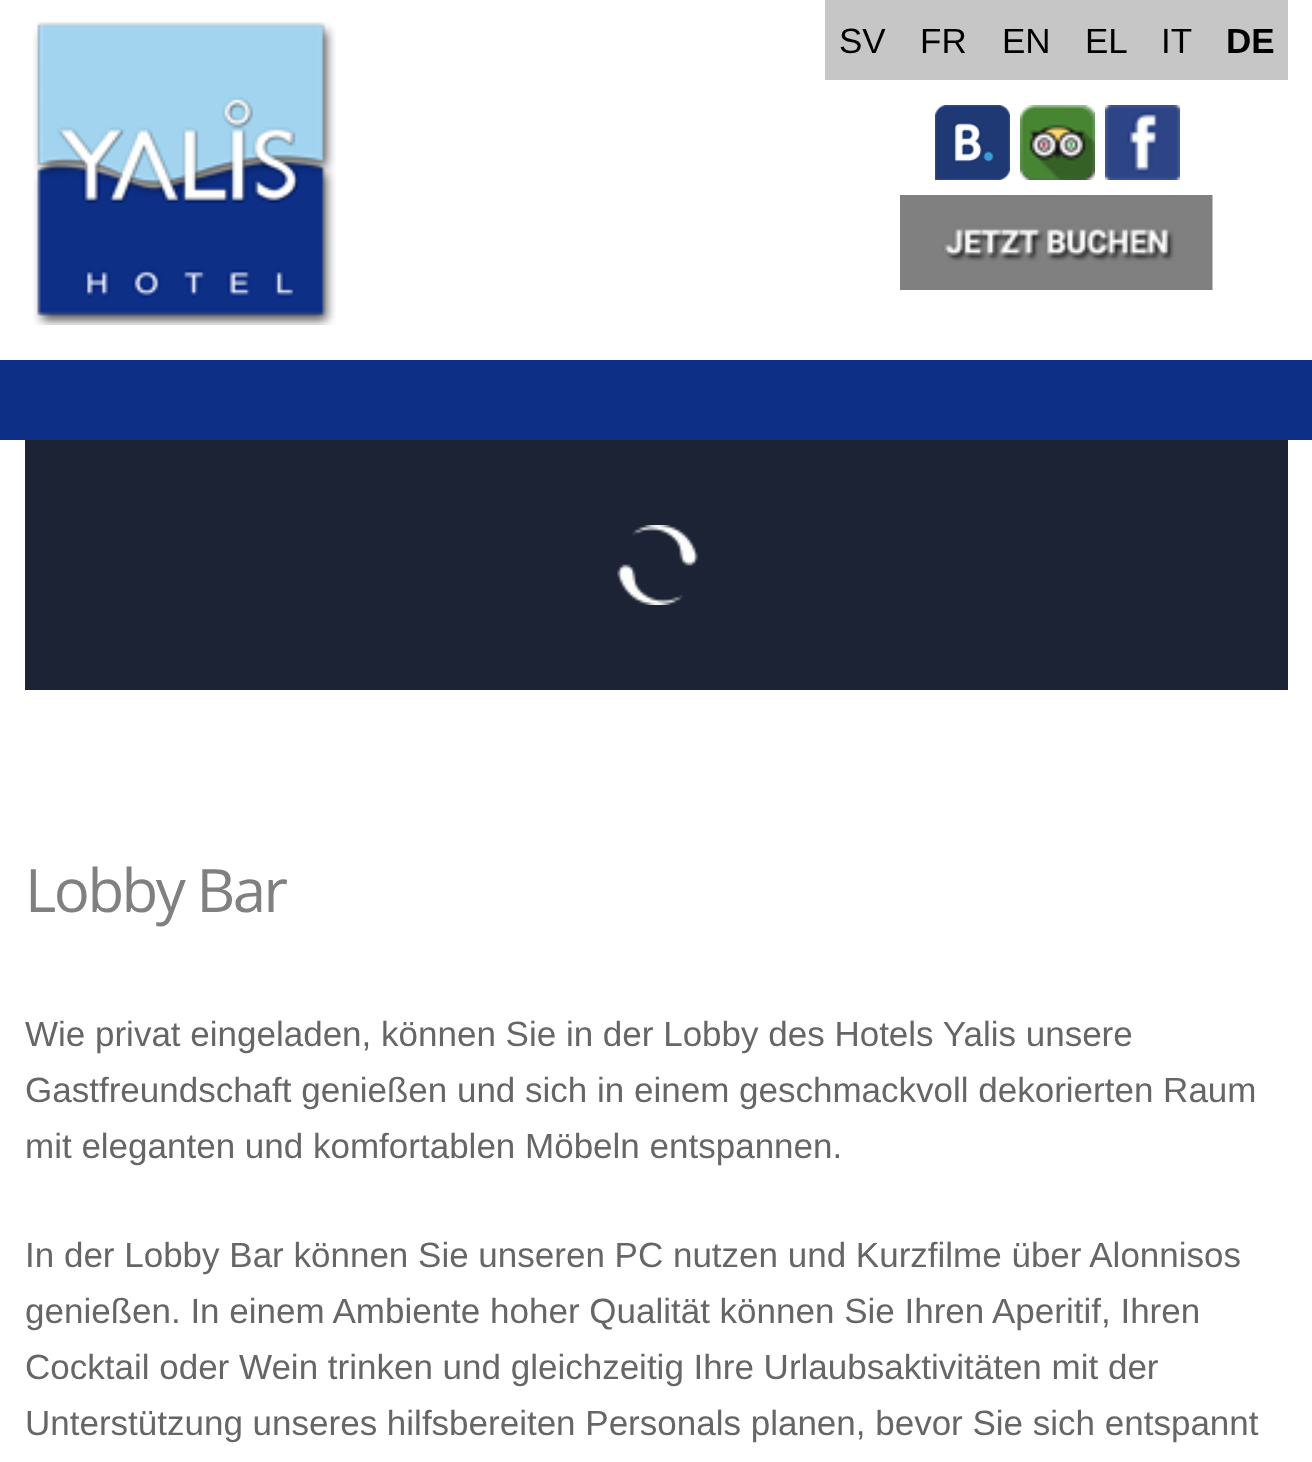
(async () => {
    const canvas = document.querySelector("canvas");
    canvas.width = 1312;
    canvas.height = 1462;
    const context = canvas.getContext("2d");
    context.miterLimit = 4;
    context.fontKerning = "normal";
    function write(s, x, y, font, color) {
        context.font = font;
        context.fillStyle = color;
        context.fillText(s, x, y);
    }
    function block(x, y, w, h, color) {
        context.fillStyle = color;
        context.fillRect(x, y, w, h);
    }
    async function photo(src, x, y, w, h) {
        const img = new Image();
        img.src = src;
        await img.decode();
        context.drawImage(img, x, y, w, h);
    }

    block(0, 0, 1312, 1462, "rgb(14, 47, 134)");
    block(0, 0, 1312, 360, "rgb(255, 255, 255)");
    await photo("media/1.png", 33, 22, 303, 303);
    block(825, 0, 463, 80, "rgb(198, 198, 198)");
    write("SV", 839, 53, "35px Liberation Sans", "rgb(0, 0, 0)");
    write("FR", 920, 53, "35px Liberation Sans", "rgb(0, 0, 0)");
    write("EN", 1002, 53, "35px Liberation Sans", "rgb(0, 0, 0)");
    write("EL", 1085, 53, "35px Liberation Sans", "rgb(0, 0, 0)");
    write("IT", 1161, 53, "35px Liberation Sans", "rgb(0, 0, 0)");
    write("DE", 1226, 53, "bold 35px Liberation Sans", "rgb(0, 0, 0)");
    await photo("media/2.png", 935, 105, 75, 75);
    await photo("media/3.png", 1020, 105, 75, 75);
    await photo("media/4.png", 1105, 105, 75, 75);
    await photo("media/5.png", 900, 195, 313, 95);
    block(0, 440, 1312, 1022, "rgb(255, 255, 255)");
    block(25, 440, 1263, 250, "rgb(28, 35, 52)");
    await photo("media/6.png", 617, 525, 81, 80);
    context.letterSpacing = "-2.5px";
    write("Lobby Bar", 25, 912, "60px Open Sans", "rgb(128, 128, 128)");
    context.letterSpacing = "0px";
    write("Wie privat eingeladen, können Sie in der Lobby des Hotels Yalis unsere", 25, 1046, "35px Liberation Sans", "rgb(102, 102, 102)");
    write("Gastfreundschaft genießen und sich in einem geschmackvoll dekorierten Raum", 25, 1102, "35px Liberation Sans", "rgb(102, 102, 102)");
    write("mit eleganten und komfortablen Möbeln entspannen.", 25, 1158, "35px Liberation Sans", "rgb(102, 102, 102)");
    write("In der Lobby Bar können Sie unseren PC nutzen und Kurzfilme über Alonnisos", 25, 1267, "35px Liberation Sans", "rgb(102, 102, 102)");
    write("genießen. In einem Ambiente hoher Qualität können Sie Ihren Aperitif, Ihren", 25, 1323, "35px Liberation Sans", "rgb(102, 102, 102)");
    write("Cocktail oder Wein trinken und gleichzeitig Ihre Urlaubsaktivitäten mit der", 25, 1379, "35px Liberation Sans", "rgb(102, 102, 102)");
    write("Unterstützung unseres hilfsbereiten Personals planen, bevor Sie sich entspannt", 25, 1435, "35px Liberation Sans", "rgb(102, 102, 102)");
})();
